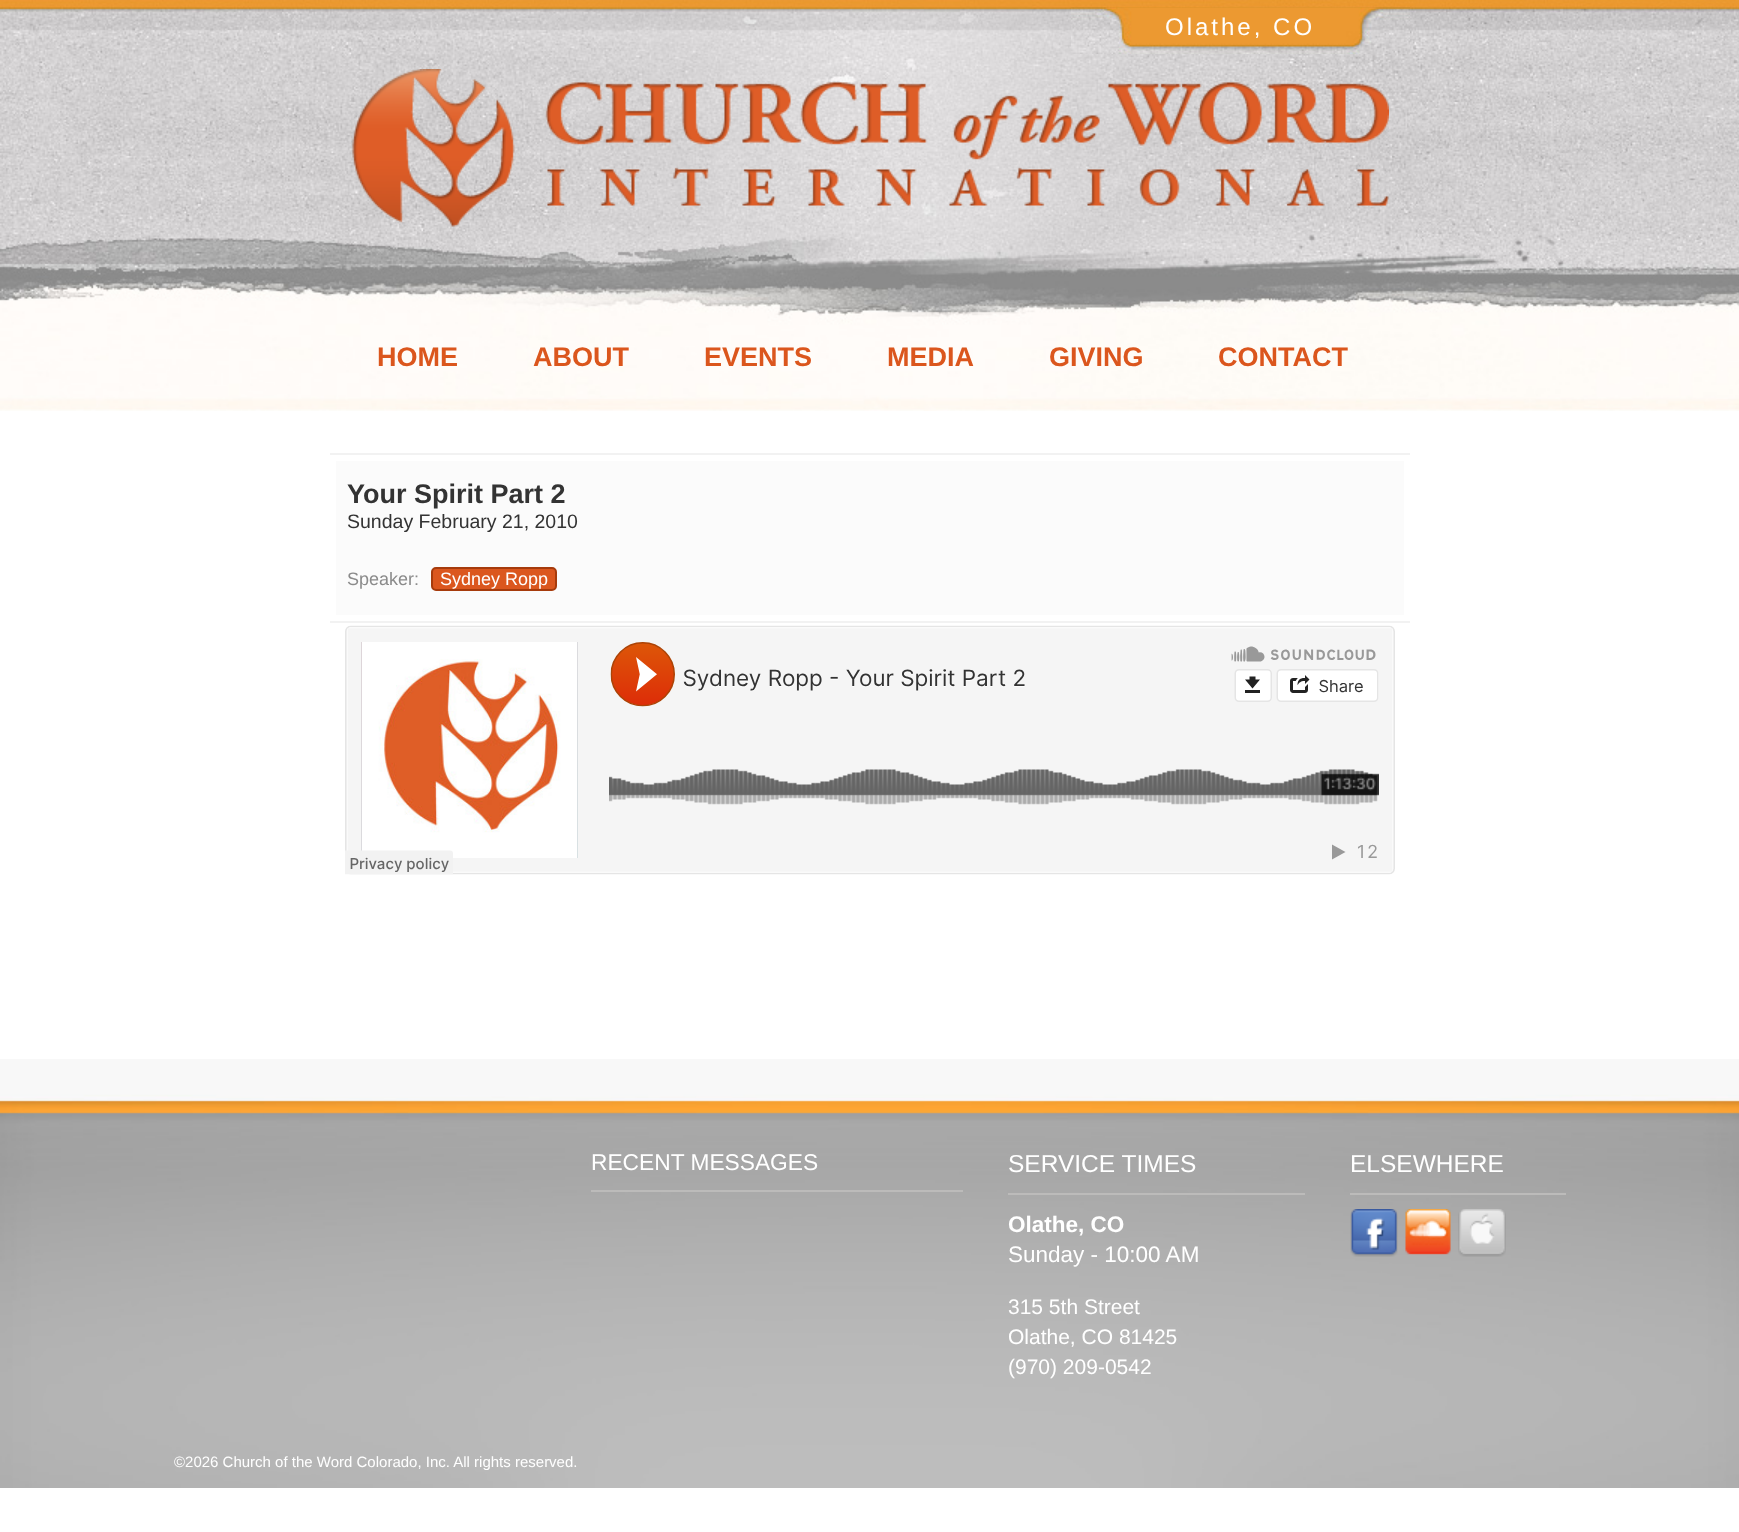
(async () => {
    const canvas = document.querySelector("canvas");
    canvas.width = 1739;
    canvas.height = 1532;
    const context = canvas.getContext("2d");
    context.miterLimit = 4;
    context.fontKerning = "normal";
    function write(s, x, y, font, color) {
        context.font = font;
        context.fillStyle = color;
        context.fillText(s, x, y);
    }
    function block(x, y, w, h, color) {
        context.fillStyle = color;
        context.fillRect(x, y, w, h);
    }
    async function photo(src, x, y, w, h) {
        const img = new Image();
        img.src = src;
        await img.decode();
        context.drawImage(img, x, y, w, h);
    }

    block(0, 0, 1739, 1532, "rgb(255, 255, 255)");
    await photo("media/1.png", 0, 0, 1739, 411);
    await photo("media/2.png", 1071, 7, 339, 47);
    context.letterSpacing = "3px";
    write("Olathe, CO", 1165, 35, "24px Liberation Sans", "rgb(255, 255, 255)");
    await photo("media/3.png", 352, 69, 1037, 158);
    context.letterSpacing = "0px";
    write("HOME", 377, 366, "bold 27px Liberation Sans", "rgb(219, 86, 29)");
    write("ABOUT", 533, 366, "bold 27px Liberation Sans", "rgb(219, 86, 29)");
    write("EVENTS", 704, 366, "bold 27px Liberation Sans", "rgb(219, 86, 29)");
    write("MEDIA", 887, 366, "bold 27px Liberation Sans", "rgb(219, 86, 29)");
    write("GIVING", 1049, 366, "bold 27px Liberation Sans", "rgb(219, 86, 29)");
    write("CONTACT", 1218, 366, "bold 27px Liberation Sans", "rgb(219, 86, 29)");
    block(330, 453, 1080, 2, "rgb(242, 242, 242)");
    block(330, 621, 1080, 2, "rgb(242, 242, 242)");
    block(336, 461, 1068, 154, "rgb(251, 251, 251)");
    write("Your Spirit Part 2", 347, 503, "bold 27px Liberation Sans", "rgb(51, 51, 51)");
    write("Sunday February 21, 2010", 347, 528, "19.5px Liberation Sans", "rgb(51, 51, 51)");
    write("Speaker:", 347, 585, "18px Liberation Sans", "rgb(139, 139, 139)");
    context.fillStyle = "rgb(219, 87, 30)";
    context.beginPath();
    context.roundRect(432, 568, 124, 22, 4);
    context.fill();
    context.strokeStyle = "rgb(166, 59, 12)";
    context.lineWidth = 2;
    context.stroke();
    write("Sydney Ropp", 440, 585, "18px Liberation Sans", "rgb(255, 255, 255)");
    await photo("media/4.png", 345, 625, 1050, 250);
    await photo("media/5.png", 0, 1059, 1739, 429);
    block(591, 1190, 372, 2, "rgb(188, 187, 186)");
    write("RECENT MESSAGES", 591, 1170, "22.75px Liberation Sans", "rgb(255, 255, 255)");
    block(1008, 1193, 297, 2, "rgb(188, 187, 186)");
    write("SERVICE TIMES", 1008, 1172, "24.5px Liberation Sans", "rgb(255, 255, 255)");
    write("Olathe, CO", 1008, 1232, "bold 22.5px Liberation Sans", "rgb(255, 255, 255)");
    write("Sunday - 10:00 AM", 1008, 1262, "22.5px Liberation Sans", "rgb(255, 255, 255)");
    write("315 5th Street", 1008, 1314, "21px Liberation Sans", "rgb(255, 255, 255)");
    write("Olathe, CO 81425", 1008, 1344, "21px Liberation Sans", "rgb(255, 255, 255)");
    write("(970) 209-0542", 1008, 1374, "21px Liberation Sans", "rgb(255, 255, 255)");
    block(1350, 1193, 216, 2, "rgb(188, 187, 186)");
    write("ELSEWHERE", 1350, 1172, "24.5px Liberation Sans", "rgb(255, 255, 255)");
    await photo("media/6.png", 1350, 1209, 48, 48);
    await photo("media/7.png", 1405, 1209, 46, 46);
    await photo("media/8.png", 1458, 1209, 48, 48);
    write("©2026 Church of the Word Colorado, Inc. All rights reserved.", 174, 1467, "15px Liberation Sans", "rgb(255, 255, 255)");
})();
